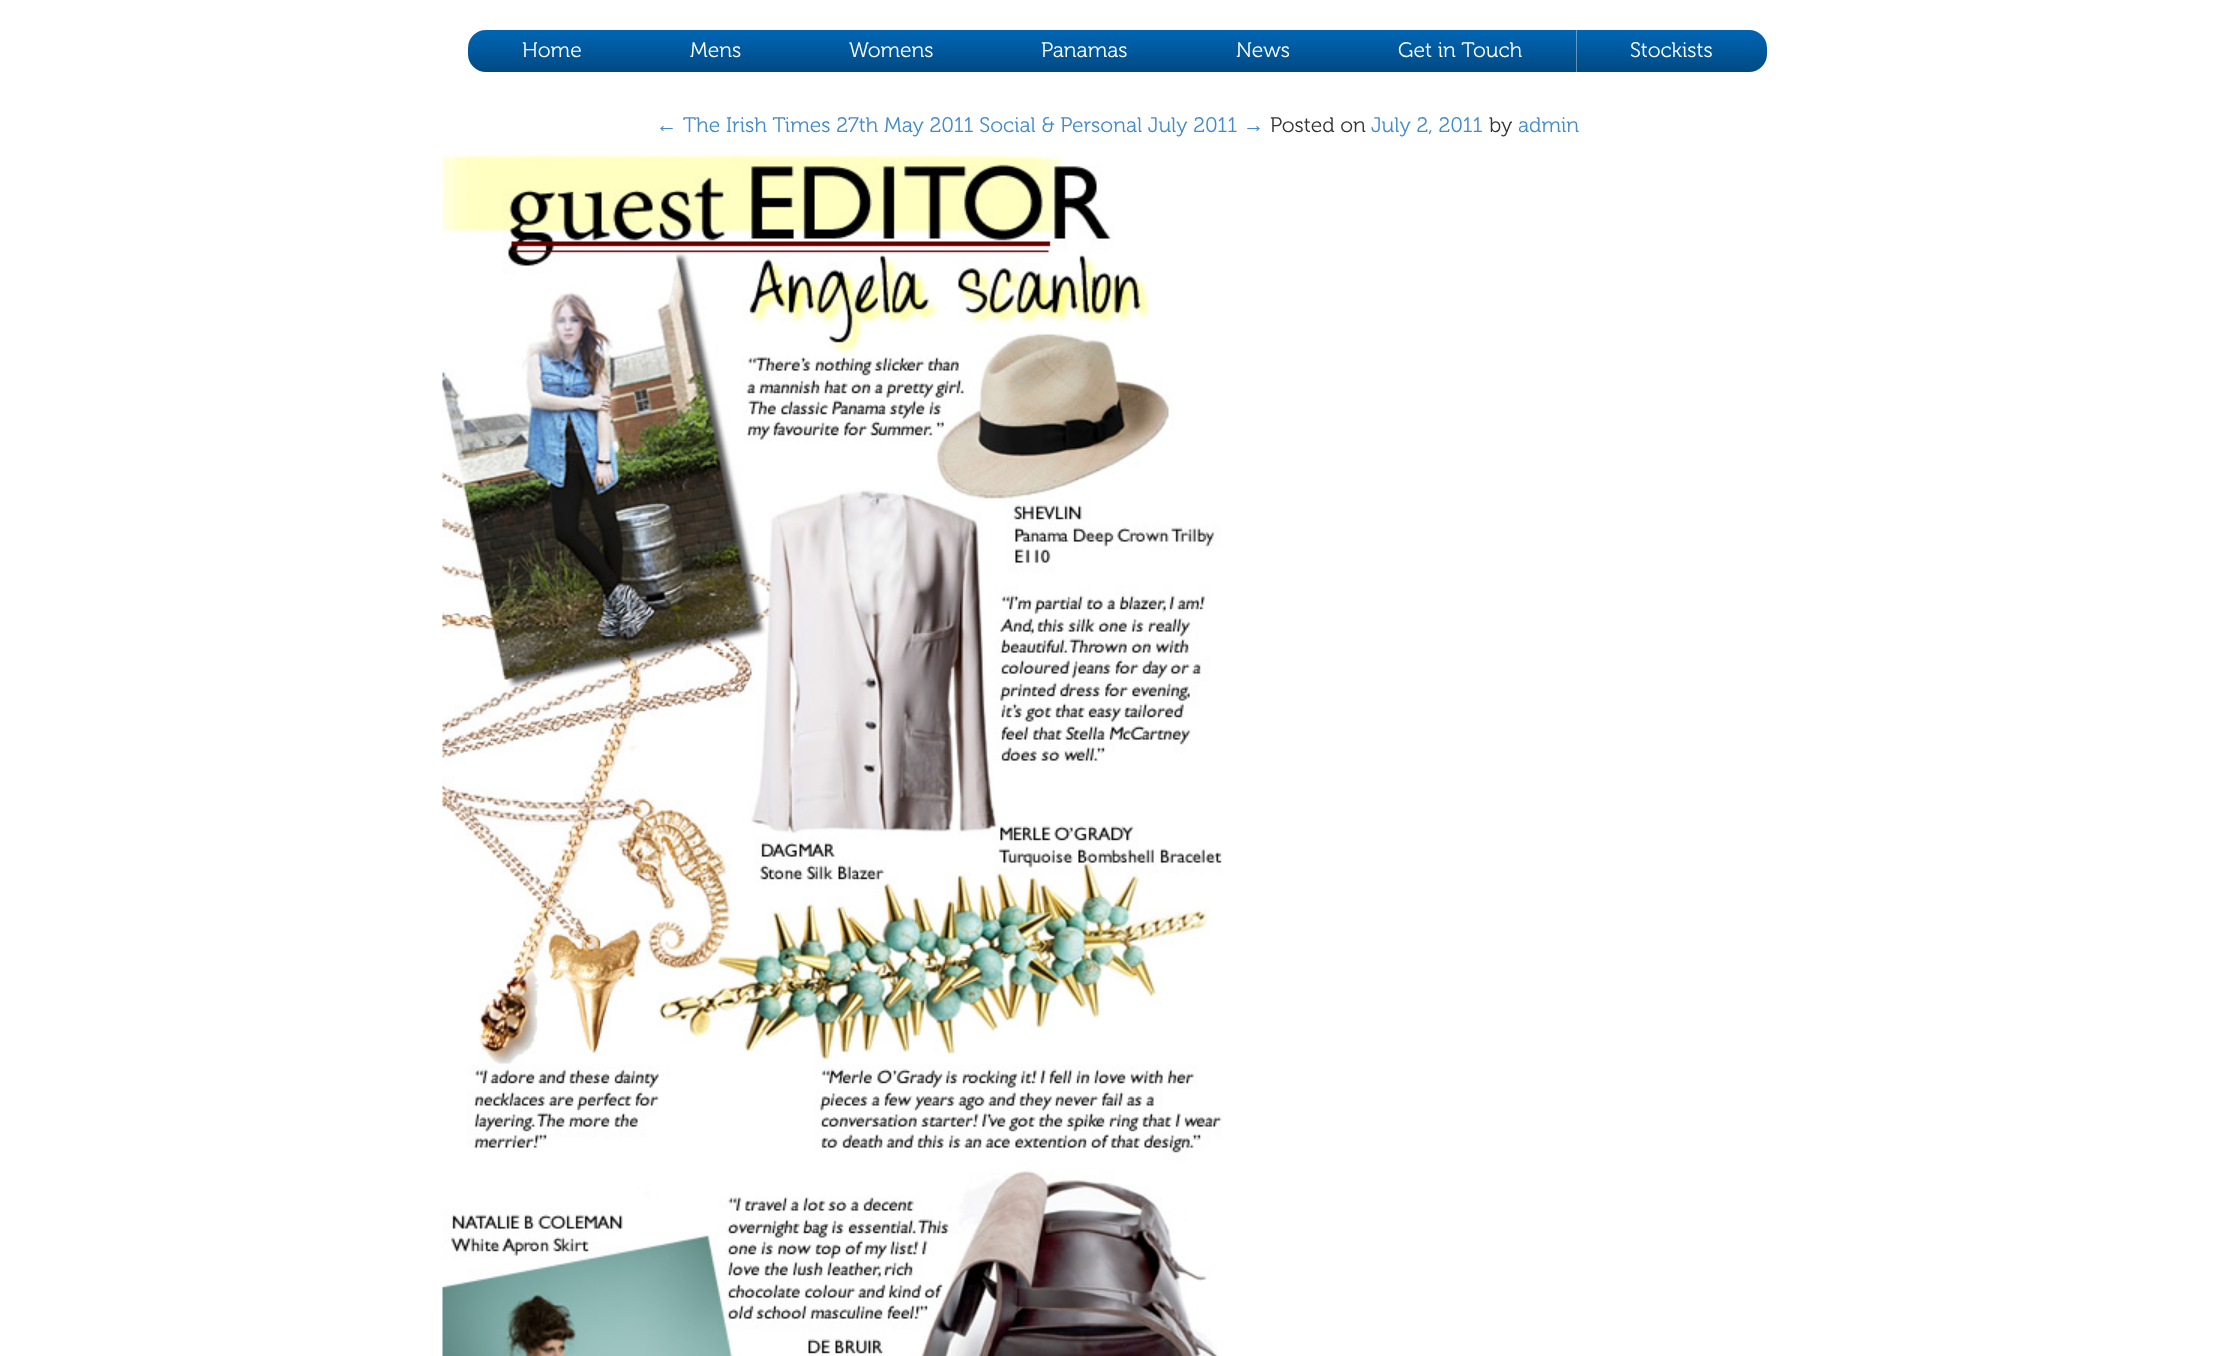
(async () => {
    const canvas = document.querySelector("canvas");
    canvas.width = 2234;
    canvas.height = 1356;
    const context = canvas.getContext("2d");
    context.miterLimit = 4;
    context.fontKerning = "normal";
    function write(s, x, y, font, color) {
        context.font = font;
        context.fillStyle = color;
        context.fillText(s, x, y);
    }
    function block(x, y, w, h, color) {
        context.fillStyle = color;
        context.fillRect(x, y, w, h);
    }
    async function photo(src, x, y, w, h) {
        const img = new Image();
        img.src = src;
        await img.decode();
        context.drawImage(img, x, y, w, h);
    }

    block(0, 0, 2234, 1356, "rgb(255, 255, 255)");
    await photo("media/1.png", 468, 30, 168, 42);
    write("Home", 522, 57, "300 21px 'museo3'", "rgb(255, 255, 255)");
    await photo("media/2.png", 636, 30, 159, 42);
    write("Mens", 690, 57, "300 21px 'museo3'", "rgb(255, 255, 255)");
    await photo("media/3.png", 795, 30, 192, 42);
    write("Womens", 849, 57, "300 21px 'museo3'", "rgb(255, 255, 255)");
    await photo("media/4.png", 987, 30, 195, 42);
    write("Panamas", 1041, 57, "300 21px 'museo3'", "rgb(255, 255, 255)");
    await photo("media/5.png", 1182, 30, 162, 42);
    write("News", 1236, 57, "300 21px 'museo3'", "rgb(255, 255, 255)");
    await photo("media/6.png", 1344, 30, 233, 42);
    write("Get in Touch", 1398, 57, "300 21px 'museo3'", "rgb(255, 255, 255)");
    await photo("media/7.png", 1576, 30, 191, 42);
    write("Stockists", 1630, 57, "300 21px 'museo3'", "rgb(255, 255, 255)");
    write("←", 656, 132, "21px Liberation Sans", "rgb(66, 139, 202)");
    write("The Irish Times 27th May 2011 Social & Personal July 2011", 683, 132, "300 21px 'museo3'", "rgb(66, 139, 202)");
    write("→", 1243, 132, "21px Liberation Sans", "rgb(66, 139, 202)");
    write("Posted on", 1270, 132, "300 21px 'museo3'", "rgb(51, 51, 51)");
    write("July 2, 2011", 1371, 132, "300 21px 'museo3'", "rgb(66, 139, 202)");
    write("by", 1489, 132, "300 21px 'museo3'", "rgb(51, 51, 51)");
    write("admin", 1518, 132, "300 21px 'museo3'", "rgb(66, 139, 202)");
    await photo("media/8.png", 442, 154, 780, 1202);
})();
